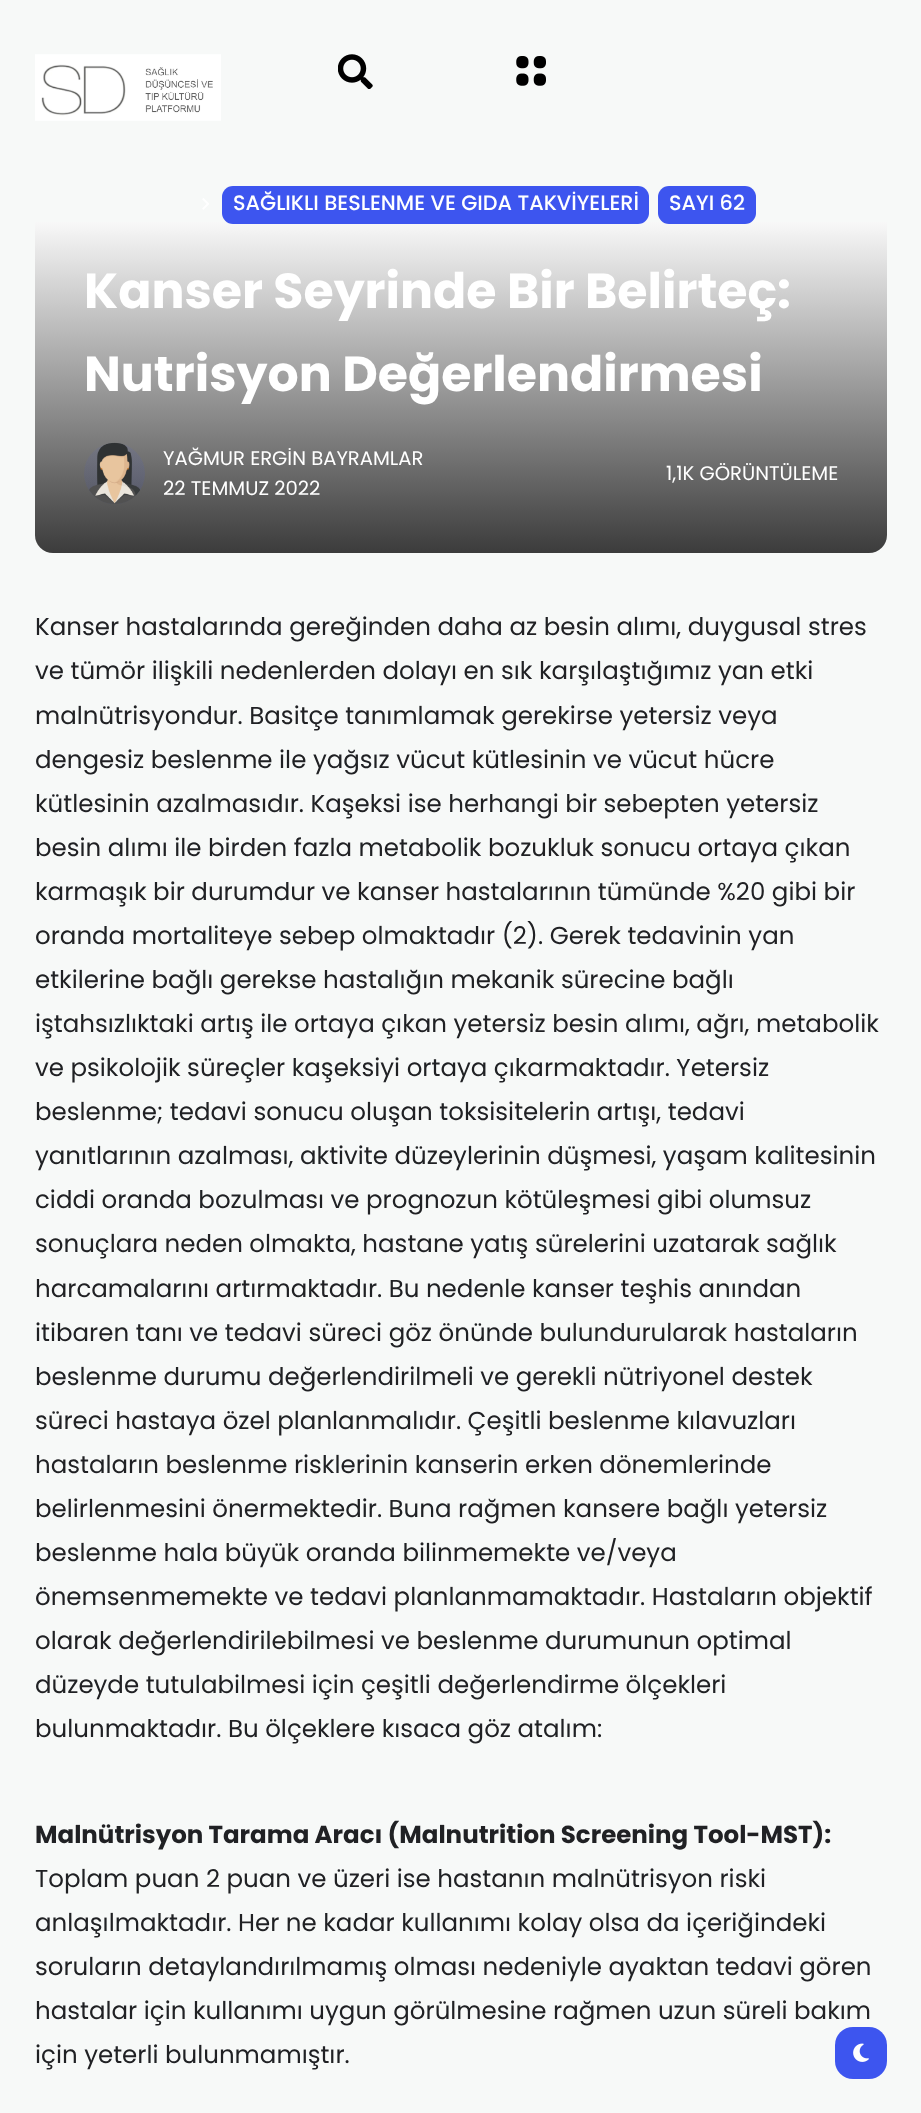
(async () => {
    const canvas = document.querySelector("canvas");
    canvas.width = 921;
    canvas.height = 2113;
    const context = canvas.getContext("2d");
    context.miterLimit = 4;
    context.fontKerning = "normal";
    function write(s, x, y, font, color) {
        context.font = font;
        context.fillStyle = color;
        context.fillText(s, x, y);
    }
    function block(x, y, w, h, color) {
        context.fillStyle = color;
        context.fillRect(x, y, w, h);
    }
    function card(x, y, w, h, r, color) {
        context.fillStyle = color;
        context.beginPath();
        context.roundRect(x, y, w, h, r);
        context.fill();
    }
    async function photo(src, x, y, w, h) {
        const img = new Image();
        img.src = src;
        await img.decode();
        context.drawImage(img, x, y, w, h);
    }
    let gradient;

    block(0, 0, 921, 2113, "rgb(247, 249, 248)");
    await photo("media/1.png", 35, 54, 186, 67);
    await photo("media/2.png", 338, 54, 35, 35);
    await photo("media/3.png", 516, 56, 30, 30);
    await photo("media/4.png", 202, 198, 7, 12);
    gradient = context.createLinearGradient(461, 222, 461, 611);
    gradient.addColorStop(0, "rgb(248, 248, 248)");
    gradient.addColorStop(0.89, "rgb(51, 51, 51)");
    gradient.addColorStop(0.93, "rgb(47, 46, 46)");
    context.fillStyle = gradient;
    context.beginPath();
    context.roundRect(35, 222, 852, 331, [0, 0, 18, 18]);
    context.fill();
    card(222, 186, 427, 38, 11, "rgb(61, 85, 239)");
    write("SAĞLIKLI BESLENME VE GIDA TAKVİYELERİ", 233, 210, "500 20.8px Poppins", "rgb(255, 255, 255)");
    card(658, 186, 98, 38, 11, "rgb(61, 85, 239)");
    write("SAYI 62", 669, 210, "500 20.8px Poppins", "rgb(255, 255, 255)");
    write("Kanser Seyrinde Bir Belirteç:", 84, 308, "bold 49px Poppins", "rgb(255, 255, 255)");
    write("Nutrisyon Değerlendirmesi", 84, 391, "bold 49px Poppins", "rgb(255, 255, 255)");
    gradient = context.createLinearGradient(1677, 2035, -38, 320);
    gradient.addColorStop(0, "rgb(61, 85, 239)");
    gradient.addColorStop(1, "rgba(61, 85, 239, 0)");
    context.fillStyle = gradient;
    context.beginPath();
    context.arc(114.5, 473.5, 30.5, 0, Math.PI * 2);
    context.fill();
    await photo("media/5.png", 89, 442, 51, 62);
    write("YAĞMUR ERGİN BAYRAMLAR", 163, 465, "19.6px Poppins", "rgb(255, 255, 255)");
    write("22 TEMMUZ 2022", 163, 495, "19.6px Poppins", "rgb(255, 255, 255)");
    write("1,1K GÖRÜNTÜLEME", 666, 480, "19.6px Poppins", "rgb(255, 255, 255)");
    write("Kanser hastalarında gereğinden daha az besin alımı, duygusal stres", 35, 635, "24.5px Poppins", "rgb(32, 33, 36)");
    write("ve tümör ilişkili nedenlerden dolayı en sık karşılaştığımız yan etki", 35, 679, "24.5px Poppins", "rgb(32, 33, 36)");
    write("malnütrisyondur. Basitçe tanımlamak gerekirse yetersiz veya", 35, 724, "24.5px Poppins", "rgb(32, 33, 36)");
    write("dengesiz beslenme ile yağsız vücut kütlesinin ve vücut hücre", 35, 768, "24.5px Poppins", "rgb(32, 33, 36)");
    write("kütlesinin azalmasıdır. Kaşeksi ise herhangi bir sebepten yetersiz", 35, 812, "24.5px Poppins", "rgb(32, 33, 36)");
    write("besin alımı ile birden fazla metabolik bozukluk sonucu ortaya çıkan", 35, 856, "24.5px Poppins", "rgb(32, 33, 36)");
    write("karmaşık bir durumdur ve kanser hastalarının tümünde %20 gibi bir", 35, 900, "24.5px Poppins", "rgb(32, 33, 36)");
    write("oranda mortaliteye sebep olmaktadır (2). Gerek tedavinin yan", 35, 944, "24.5px Poppins", "rgb(32, 33, 36)");
    write("etkilerine bağlı gerekse hastalığın mekanik sürecine bağlı", 35, 988, "24.5px Poppins", "rgb(32, 33, 36)");
    write("iştahsızlıktaki artış ile ortaya çıkan yetersiz besin alımı, ağrı, metabolik", 35, 1032, "24.5px Poppins", "rgb(32, 33, 36)");
    write("ve psikolojik süreçler kaşeksiyi ortaya çıkarmaktadır. Yetersiz", 35, 1076, "24.5px Poppins", "rgb(32, 33, 36)");
    write("beslenme; tedavi sonucu oluşan toksisitelerin artışı, tedavi", 35, 1120, "24.5px Poppins", "rgb(32, 33, 36)");
    write("yanıtlarının azalması, aktivite düzeylerinin düşmesi, yaşam kalitesinin", 35, 1164, "24.5px Poppins", "rgb(32, 33, 36)");
    write("ciddi oranda bozulması ve prognozun kötüleşmesi gibi olumsuz", 35, 1208, "24.5px Poppins", "rgb(32, 33, 36)");
    write("sonuçlara neden olmakta, hastane yatış sürelerini uzatarak sağlık", 35, 1252, "24.5px Poppins", "rgb(32, 33, 36)");
    write("harcamalarını artırmaktadır. Bu nedenle kanser teşhis anından", 35, 1297, "24.5px Poppins", "rgb(32, 33, 36)");
    write("itibaren tanı ve tedavi süreci göz önünde bulundurularak hastaların", 35, 1341, "24.5px Poppins", "rgb(32, 33, 36)");
    write("beslenme durumu değerlendirilmeli ve gerekli nütriyonel destek", 35, 1385, "24.5px Poppins", "rgb(32, 33, 36)");
    write("süreci hastaya özel planlanmalıdır. Çeşitli beslenme kılavuzları", 35, 1429, "24.5px Poppins", "rgb(32, 33, 36)");
    write("hastaların beslenme risklerinin kanserin erken dönemlerinde", 35, 1473, "24.5px Poppins", "rgb(32, 33, 36)");
    write("belirlenmesini önermektedir. Buna rağmen kansere bağlı yetersiz", 35, 1517, "24.5px Poppins", "rgb(32, 33, 36)");
    write("beslenme hala büyük oranda bilinmemekte ve/veya", 35, 1561, "24.5px Poppins", "rgb(32, 33, 36)");
    write("önemsenmemekte ve tedavi planlanmamaktadır. Hastaların objektif", 35, 1605, "24.5px Poppins", "rgb(32, 33, 36)");
    write("olarak değerlendirilebilmesi ve beslenme durumunun optimal", 35, 1649, "24.5px Poppins", "rgb(32, 33, 36)");
    write("düzeyde tutulabilmesi için çeşitli değerlendirme ölçekleri", 35, 1693, "24.5px Poppins", "rgb(32, 33, 36)");
    write("bulunmaktadır. Bu ölçeklere kısaca göz atalım:", 35, 1737, "24.5px Poppins", "rgb(32, 33, 36)");
    write("Malnütrisyon Tarama Aracı (Malnutrition Screening Tool-MST):", 35, 1843, "bold 24.5px Poppins", "rgb(32, 33, 36)");
    write("Toplam puan 2 puan ve üzeri ise hastanın malnütrisyon riski", 35, 1887, "24.5px Poppins", "rgb(32, 33, 36)");
    write("anlaşılmaktadır. Her ne kadar kullanımı kolay olsa da içeriğindeki", 35, 1931, "24.5px Poppins", "rgb(32, 33, 36)");
    write("soruların detaylandırılmamış olması nedeniyle ayaktan tedavi gören", 35, 1975, "24.5px Poppins", "rgb(32, 33, 36)");
    write("hastalar için kullanımı uygun görülmesine rağmen uzun süreli bakım", 35, 2019, "24.5px Poppins", "rgb(32, 33, 36)");
    write("için yeterli bulunmamıştır.", 35, 2063, "24.5px Poppins", "rgb(32, 33, 36)");
    card(835, 2027, 52, 52, 18, "rgb(61, 85, 239)");
    await photo("media/6.png", 853, 2043, 16, 19);
})();
